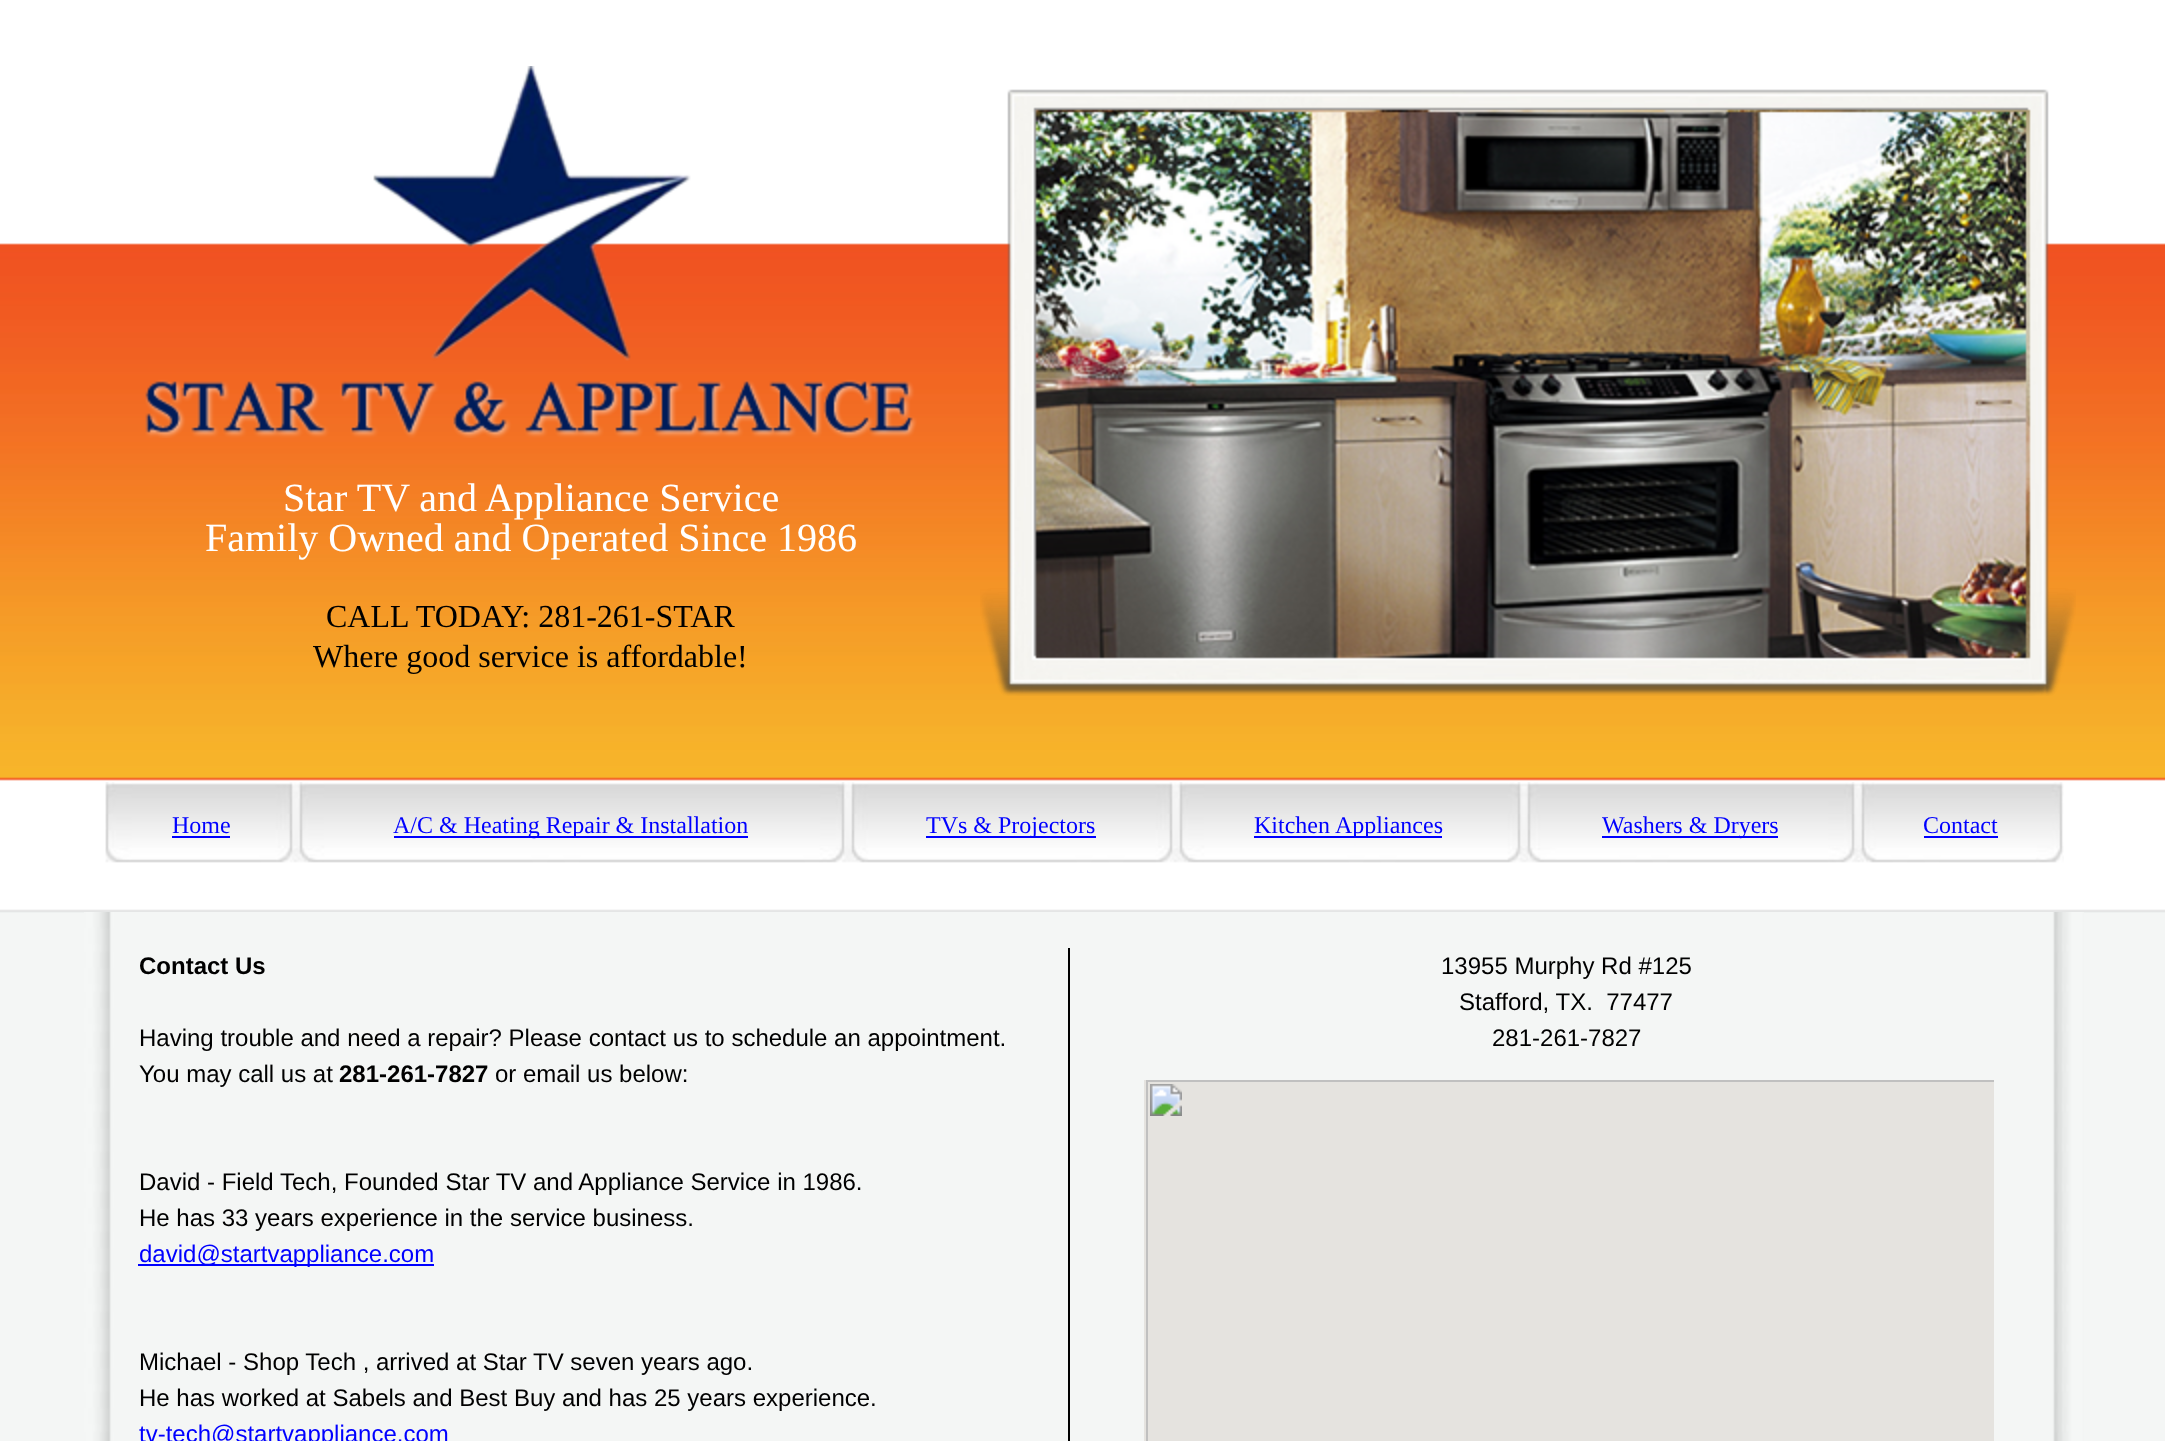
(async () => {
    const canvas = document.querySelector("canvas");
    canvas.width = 2165;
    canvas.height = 1441;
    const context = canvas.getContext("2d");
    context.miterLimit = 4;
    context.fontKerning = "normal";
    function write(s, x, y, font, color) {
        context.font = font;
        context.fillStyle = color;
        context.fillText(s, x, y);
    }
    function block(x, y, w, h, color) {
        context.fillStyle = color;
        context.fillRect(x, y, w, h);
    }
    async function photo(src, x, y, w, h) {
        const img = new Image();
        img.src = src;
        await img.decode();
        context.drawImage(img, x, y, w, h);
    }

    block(0, 0, 2165, 1441, "rgb(244, 246, 245)");
    await photo("media/1.png", 0, 0, 2165, 913);
    await photo("media/2.png", 145, 66, 772, 372);
    write("Star TV and Appliance Service", 283, 511, "40px Liberation Serif", "rgb(255, 255, 255)");
    write("Family Owned and Operated Since 1986", 205, 551, "40px Liberation Serif", "rgb(255, 255, 255)");
    write("CALL TODAY: 281-261-STAR", 326, 627, "32px Liberation Serif", "rgb(0, 0, 0)");
    write("Where good service is affordable!", 313, 667, "32px Liberation Serif", "rgb(0, 0, 0)");
    await photo("media/3.png", 980, 89, 1096, 607);
    await photo("media/4.png", 105, 782, 1959, 81);
    write("Home", 172, 833, "24px Liberation Serif", "rgb(0, 0, 255)");
    block(172, 836, 58, 2, "rgb(0, 0, 255)");
    block(394, 836, 354, 2, "rgb(0, 0, 255)");
    write("A/C & Heating Repair & Installation", 393, 833, "24px Liberation Serif", "rgb(0, 0, 255)");
    block(926, 836, 170, 2, "rgb(0, 0, 255)");
    write("TVs & Projectors", 926, 833, "24px Liberation Serif", "rgb(0, 0, 255)");
    write("Kitchen", 1254, 833, "24px Liberation Serif", "rgb(0, 0, 255)");
    block(1254, 836, 188, 2, "rgb(0, 0, 255)");
    write("Appliances", 1335, 833, "24px Liberation Serif", "rgb(0, 0, 255)");
    block(1602, 836, 176, 2, "rgb(0, 0, 255)");
    write("Washers & Dryers", 1602, 833, "24px Liberation Serif", "rgb(0, 0, 255)");
    write("Contact", 1923, 833, "24px Liberation Serif", "rgb(0, 0, 255)");
    block(1924, 836, 74, 2, "rgb(0, 0, 255)");
    await photo("media/5.png", 84, 912, 2000, 529);
    write("Contact Us", 139, 974, "bold 24px Liberation Sans", "rgb(0, 0, 0)");
    write("Having trouble and need a repair? Please contact us to schedule an appointment.", 139, 1046, "24px Liberation Sans", "rgb(0, 0, 0)");
    write("You may call us at", 139, 1082, "24px Liberation Sans", "rgb(0, 0, 0)");
    write("281-261-7827", 339, 1082, "bold 24px Liberation Sans", "rgb(0, 0, 0)");
    write("or email us below:", 495, 1082, "24px Liberation Sans", "rgb(0, 0, 0)");
    write("David - Field Tech, Founded Star TV and Appliance Service in 1986.", 139, 1190, "24px Liberation Sans", "rgb(0, 0, 0)");
    write("He has 33 years experience in the service business.", 139, 1226, "24px Liberation Sans", "rgb(0, 0, 0)");
    block(138, 1264, 296, 2, "rgb(0, 0, 255)");
    write("david@startvappliance.com", 139, 1262, "24px Liberation Sans", "rgb(0, 0, 255)");
    write("Michael - Shop Tech , arrived at Star TV seven years ago.", 139, 1370, "24px Liberation Sans", "rgb(0, 0, 0)");
    write("He has worked at Sabels and Best Buy and has 25 years experience.", 139, 1406, "24px Liberation Sans", "rgb(0, 0, 0)");
    write("tv-tech@startvappliance.com", 139, 1442, "24px Liberation Sans", "rgb(0, 0, 255)");
    block(1068, 948, 2, 493, "rgb(0, 0, 0)");
    write("13955 Murphy Rd #125", 1441, 974, "24px Liberation Sans", "rgb(0, 0, 0)");
    write("Stafford, TX.  77477", 1459, 1010, "24px Liberation Sans", "rgb(0, 0, 0)");
    write("281-261-7827", 1492, 1046, "24px Liberation Sans", "rgb(0, 0, 0)");
    await photo("media/6.png", 1144, 1080, 850, 361);
})();
